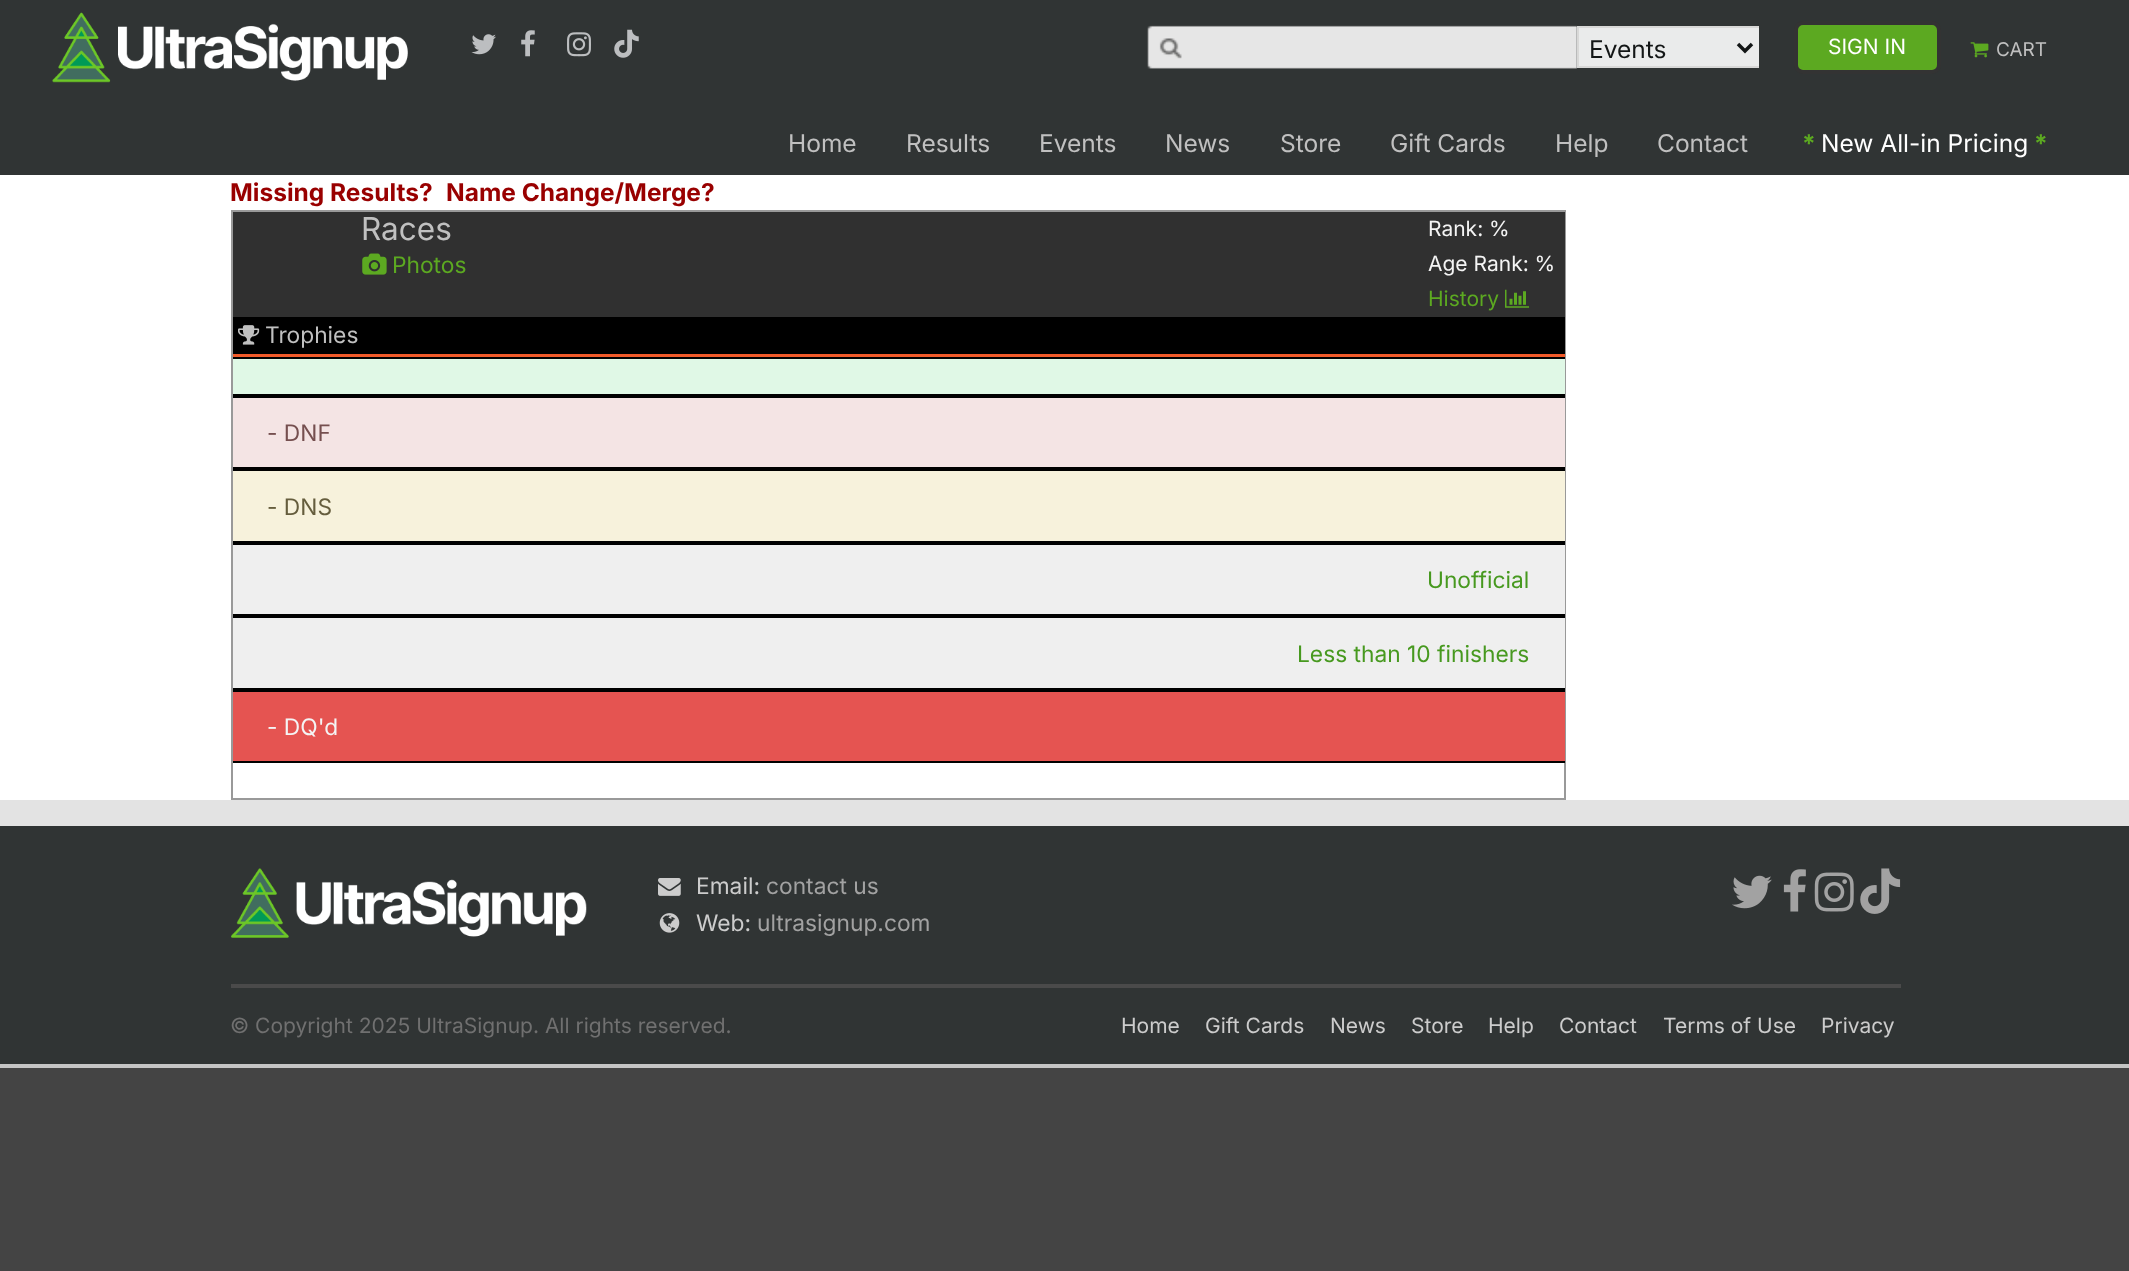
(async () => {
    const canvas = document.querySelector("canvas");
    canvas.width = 2129;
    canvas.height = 1271;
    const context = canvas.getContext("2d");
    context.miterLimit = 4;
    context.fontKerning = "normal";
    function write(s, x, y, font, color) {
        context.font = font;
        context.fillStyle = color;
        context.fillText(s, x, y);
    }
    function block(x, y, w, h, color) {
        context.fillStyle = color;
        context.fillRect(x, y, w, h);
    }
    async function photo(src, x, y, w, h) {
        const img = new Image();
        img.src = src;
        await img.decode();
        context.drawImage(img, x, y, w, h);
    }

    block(0, 0, 2129, 1271, "rgb(68, 68, 68)");
    block(0, 175, 2129, 625, "rgb(255, 255, 255)");
    block(0, 0, 2129, 175, "rgb(48, 52, 52)");
    await photo("media/1.png", 52, 12, 356, 71);
    await photo("media/2.png", 471, 34, 25, 21);
    await photo("media/3.png", 521, 30, 14, 27);
    await photo("media/4.png", 567, 32, 24, 25);
    await photo("media/5.png", 614, 29, 25, 29);
    await photo("media/6.png", 1147, 25, 430, 44);
    block(1579, 28, 180, 38, "rgb(234, 235, 235)");
    context.save();
    context.beginPath();
    context.rect(1559, 23, 200, 47);
    context.clip();
    context.strokeStyle = "rgb(216, 216, 215)";
    context.lineWidth = 2;
    context.strokeRect(1578, 27, 182, 40);
    context.restore();
    context.beginPath();
    context.moveTo(1738, 44);
    context.lineTo(1745, 51);
    context.lineTo(1752, 44);
    context.strokeStyle = "rgb(19, 22, 22)";
    context.lineWidth = 3.5;
    context.stroke();
    write("Events", 1589, 58, "24.5px Inter", "rgb(19, 22, 22)");
    context.fillStyle = "rgb(92, 169, 33)";
    context.beginPath();
    context.roundRect(1796, 23, 143, 49, 7);
    context.fill();
    context.strokeStyle = "rgb(51, 51, 51)";
    context.lineWidth = 4;
    context.stroke();
    write("SIGN IN", 1828, 54, "21px Inter", "rgb(255, 255, 255)");
    await photo("media/7.png", 1970, 42, 19, 16);
    write("CART", 1996, 56, "19px Inter", "rgb(192, 192, 192)");
    write("Home", 788, 152, "24.5px Inter", "rgb(192, 192, 192)");
    write("Results", 906, 152, "24.5px Inter", "rgb(192, 192, 192)");
    write("Events", 1039, 152, "24.5px Inter", "rgb(192, 192, 192)");
    write("News", 1165, 152, "24.5px Inter", "rgb(192, 192, 192)");
    write("Store", 1280, 152, "24.5px Inter", "rgb(192, 192, 192)");
    write("Gift Cards", 1390, 152, "24.5px Inter", "rgb(192, 192, 192)");
    write("Help", 1555, 152, "24.5px Inter", "rgb(192, 192, 192)");
    write("Contact", 1657, 152, "24.5px Inter", "rgb(192, 192, 192)");
    write("*", 1802, 152, "bold 24.5px Inter", "rgb(92, 169, 33)");
    write("New All-in Pricing", 1821, 152, "24.5px Inter", "rgb(255, 255, 255)");
    write("*", 2034, 152, "bold 24.5px Inter", "rgb(92, 169, 33)");
    write("Missing Results?", 230, 201, "bold 24.5px Inter", "rgb(153, 0, 0)");
    write("Name Change/Merge?", 446, 201, "bold 24.5px Inter", "rgb(153, 0, 0)");
    context.strokeStyle = "rgb(153, 153, 153)";
    context.lineWidth = 2;
    context.strokeRect(232, 211, 1333, 588);
    block(233, 212, 1332, 105, "rgb(48, 48, 48)");
    write("Races", 361, 240, "31.5px Inter", "rgb(192, 192, 192)");
    await photo("media/8.png", 362, 253, 25, 22);
    write("Photos", 392, 273, "22.75px Inter", "rgb(92, 169, 33)");
    write("Rank: %", 1428, 236, "21px Inter", "rgb(244, 244, 244)");
    write("Age Rank: %", 1428, 271, "21px Inter", "rgb(244, 244, 244)");
    write("History", 1428, 306, "21px Inter", "rgb(92, 169, 33)");
    await photo("media/9.png", 1505, 289, 24, 19);
    block(233, 317, 1332, 37, "rgb(0, 0, 0)");
    block(233, 354, 1332, 3, "rgb(241, 90, 41)");
    await photo("media/10.png", 238, 325, 22, 20);
    write("Trophies", 265, 343, "22.75px Inter", "rgb(192, 192, 192)");
    block(233, 359, 1332, 35, "rgb(224, 248, 230)");
    block(233, 357, 1332, 2, "rgb(0, 0, 0)");
    block(233, 394, 1332, 4, "rgb(0, 0, 0)");
    block(233, 398, 1332, 69, "rgb(244, 228, 228)");
    block(233, 467, 1332, 4, "rgb(0, 0, 0)");
    write("- DNF", 267, 441, "22.75px Inter", "rgb(117, 79, 79)");
    block(233, 471, 1332, 70, "rgb(247, 242, 220)");
    block(233, 541, 1332, 4, "rgb(0, 0, 0)");
    write("- DNS", 267, 515, "22.75px Inter", "rgb(101, 93, 61)");
    block(233, 545, 1332, 69, "rgb(239, 239, 239)");
    block(233, 614, 1332, 4, "rgb(0, 0, 0)");
    write("Unofficial", 1427, 588, "22.75px Inter", "rgb(71, 153, 31)");
    block(233, 618, 1332, 70, "rgb(239, 239, 239)");
    block(233, 688, 1332, 4, "rgb(0, 0, 0)");
    write("Less than 10 finishers", 1297, 662, "22.75px Inter", "rgb(71, 153, 31)");
    block(233, 692, 1332, 69, "rgb(229, 84, 81)");
    block(233, 761, 1332, 2, "rgb(0, 0, 0)");
    write("- DQ'd", 267, 735, "22.75px Inter", "rgb(244, 244, 244)");
    block(0, 800, 2129, 26, "rgb(227, 227, 227)");
    block(0, 826, 2129, 238, "rgb(48, 52, 52)");
    await photo("media/11.png", 231, 868, 356, 70);
    await photo("media/12.png", 658, 878, 23, 18);
    write("Email:", 696, 894, "22.75px Inter", "rgb(204, 204, 204)");
    write("contact us", 766, 894, "22.75px Inter", "rgb(162, 162, 162)");
    await photo("media/13.png", 659, 913, 21, 20);
    write("Web:", 696, 931, "22.75px Inter", "rgb(204, 204, 204)");
    write("ultrasignup.com", 757, 931, "22.75px Inter", "rgb(162, 162, 162)");
    await photo("media/14.png", 1732, 875, 40, 34);
    await photo("media/15.png", 1783, 869, 23, 43);
    await photo("media/16.png", 1814, 872, 40, 40);
    await photo("media/17.png", 1860, 868, 41, 46);
    block(231, 984, 1670, 4, "rgb(74, 74, 74)");
    write("© Copyright 2025 UltraSignup. All rights reserved.", 230, 1033, "21px Inter", "rgb(112, 112, 112)");
    write("Home", 1121, 1033, "21px Inter", "rgb(204, 204, 204)");
    write("Gift Cards", 1205, 1033, "21px Inter", "rgb(204, 204, 204)");
    write("News", 1330, 1033, "21px Inter", "rgb(204, 204, 204)");
    write("Store", 1411, 1033, "21px Inter", "rgb(204, 204, 204)");
    write("Help", 1488, 1033, "21px Inter", "rgb(204, 204, 204)");
    write("Contact", 1559, 1033, "21px Inter", "rgb(204, 204, 204)");
    write("Terms of Use", 1663, 1033, "21px Inter", "rgb(204, 204, 204)");
    write("Privacy", 1821, 1033, "21px Inter", "rgb(204, 204, 204)");
    block(0, 1064, 2129, 4, "rgb(197, 197, 197)");
})();
